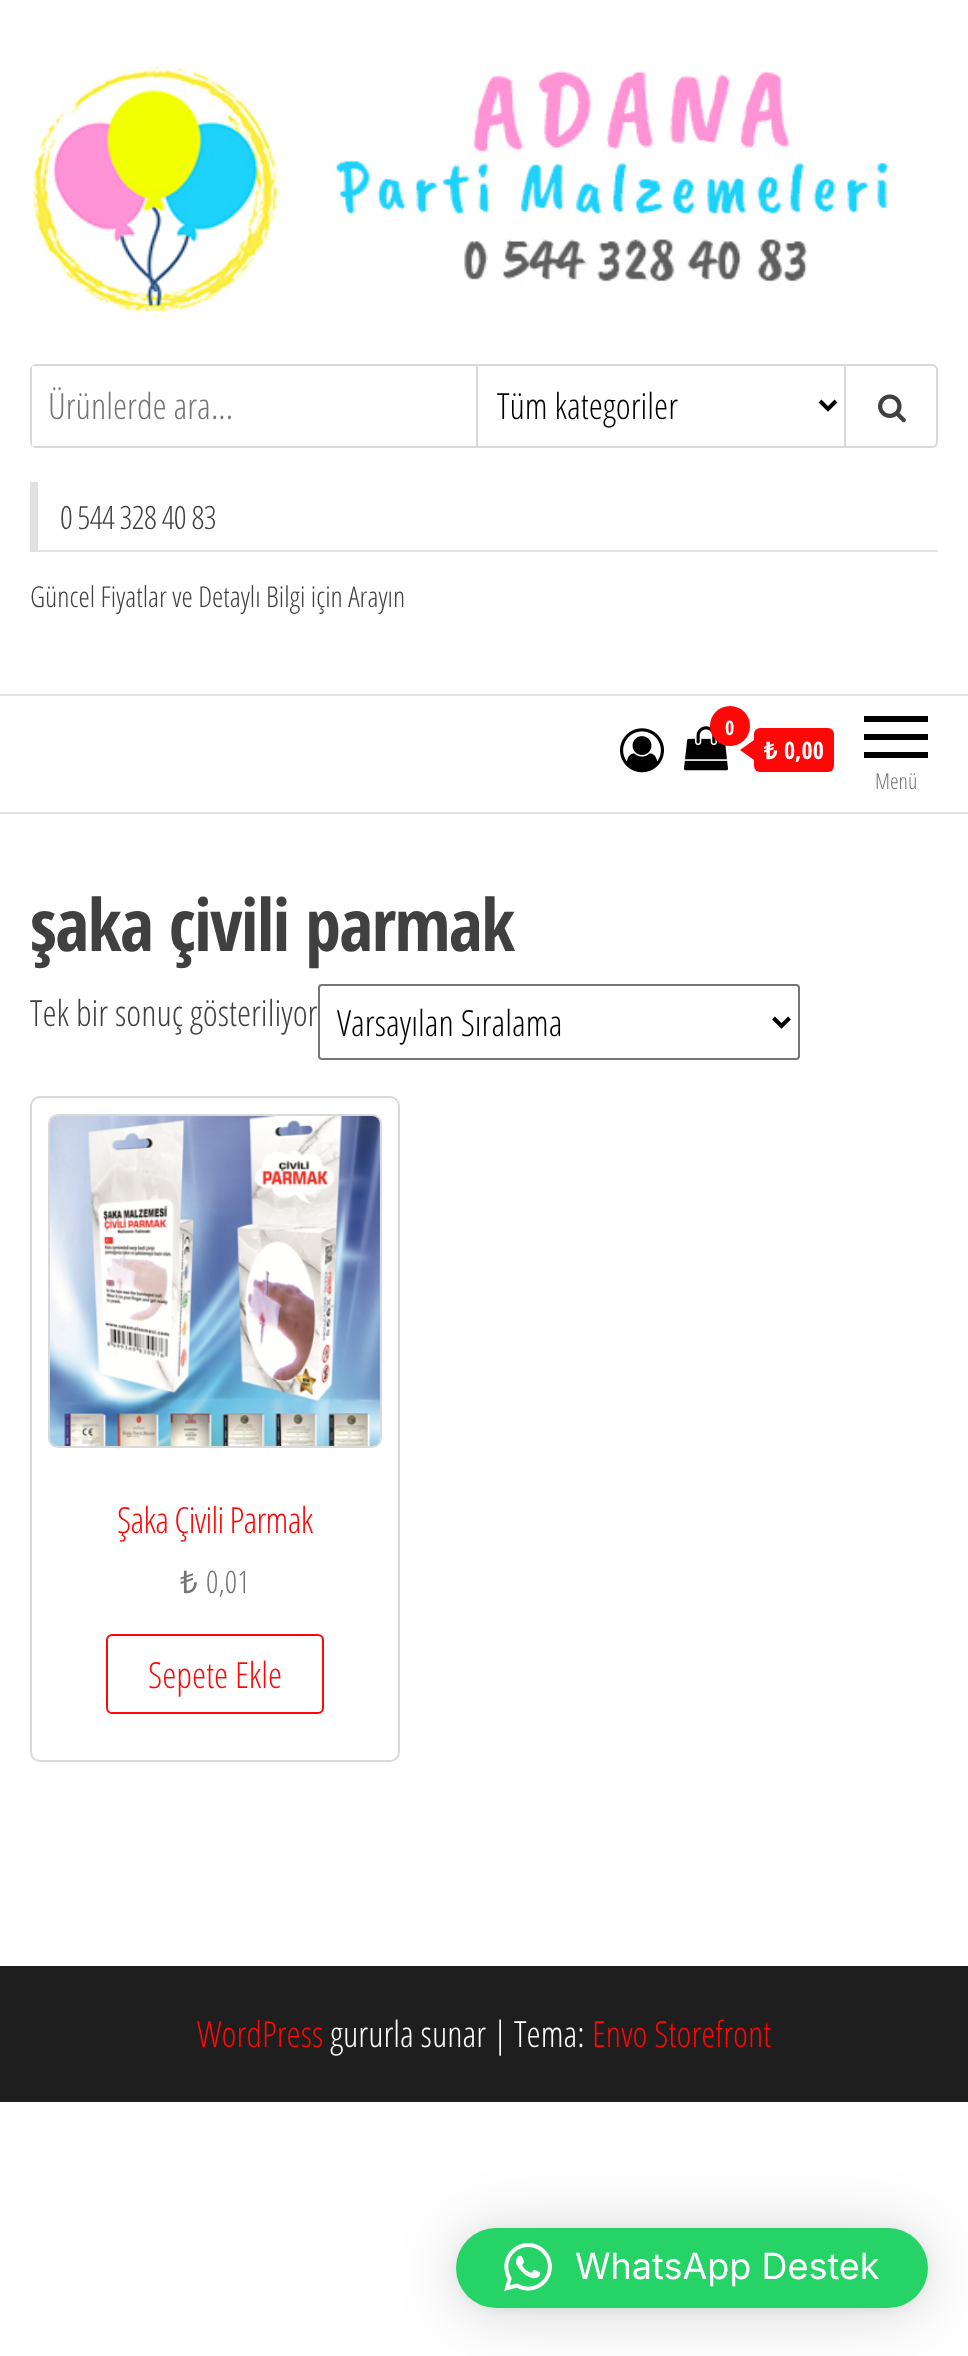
(async () => {
    const canvas = document.querySelector("canvas");
    canvas.width = 968;
    canvas.height = 2356;
    const context = canvas.getContext("2d");
    context.miterLimit = 4;
    context.fontKerning = "normal";
    function write(s, x, y, font, color) {
        context.font = font;
        context.fillStyle = color;
        context.fillText(s, x, y);
    }
    function block(x, y, w, h, color) {
        context.fillStyle = color;
        context.fillRect(x, y, w, h);
    }
    function card(x, y, w, h, r, color) {
        context.fillStyle = color;
        context.beginPath();
        context.roundRect(x, y, w, h, r);
        context.fill();
    }
    async function photo(src, x, y, w, h) {
        const img = new Image();
        img.src = src;
        await img.decode();
        context.drawImage(img, x, y, w, h);
    }

    block(0, 0, 968, 2356, "rgb(255, 255, 255)");
    await photo("media/1.png", 33, 60, 856, 253);
    context.beginPath();
    context.roundRect(31, 365, 906, 82, 5);
    context.strokeStyle = "rgb(217, 217, 217)";
    context.lineWidth = 2;
    context.stroke();
    block(32, 366, 3, 80, "rgb(255, 255, 255)");
    block(476, 366, 2, 80, "rgb(217, 217, 217)");
    write("Ürünlerde ara...", 48, 419, "300 36px Open Sans Condensed", "rgb(117, 117, 117)");
    context.beginPath();
    context.moveTo(820, 401);
    context.lineTo(828, 409);
    context.lineTo(836, 401);
    context.strokeStyle = "rgb(0, 0, 0)";
    context.lineWidth = 4;
    context.stroke();
    write("Tüm kategoriler", 497, 419, "300 36px Open Sans Condensed", "rgb(0, 0, 0)");
    block(844, 366, 2, 80, "rgb(217, 217, 217)");
    await photo("media/2.png", 878, 394, 28, 29);
    block(30, 550, 908, 2, "rgb(226, 226, 226)");
    block(30, 482, 8, 68, "rgb(226, 226, 226)");
    context.letterSpacing = "-0.6px";
    write("0 544 328 40 83", 60, 529, "300 32px Open Sans Condensed", "rgb(64, 64, 64)");
    context.letterSpacing = "0px";
    write("Güncel Fiyatlar ve Detaylı Bilgi için Arayın", 30, 607, "300 28.75px Open Sans Condensed", "rgb(64, 64, 64)");
    block(0, 694, 968, 2, "rgb(226, 226, 226)");
    block(0, 812, 968, 2, "rgb(226, 226, 226)");
    await photo("media/3.png", 620, 728, 44, 45);
    await photo("media/4.png", 684, 726, 44, 45);
    context.fillStyle = "rgb(255, 7, 7)";
    context.beginPath();
    context.arc(730, 726, 20, 0, Math.PI * 2);
    context.fill();
    write("0", 725, 735, "bold 20px Open Sans Condensed", "rgb(255, 255, 255)");
    card(754, 728, 80, 44, 6, "rgb(255, 7, 7)");
    context.beginPath();
    context.moveTo(754, 740);
    context.lineTo(754, 760);
    context.lineTo(740, 750);
    context.closePath();
    context.fill();
    write("₺", 764, 759, "bold 24px Noto Sans", "rgb(255, 255, 255)");
    write("0,00", 784, 759, "bold 24px Open Sans Condensed", "rgb(255, 255, 255)");
    block(864, 716, 64, 6, "rgb(0, 0, 0)");
    block(864, 734, 64, 6, "rgb(0, 0, 0)");
    block(864, 752, 64, 6, "rgb(0, 0, 0)");
    write("Menü", 875, 789, "300 22px Open Sans Condensed", "rgb(117, 117, 117)");
    context.letterSpacing = "-1.4px";
    write("şaka çivili parmak", 30, 951, "bold 72px Open Sans Condensed", "rgb(64, 64, 64)");
    context.letterSpacing = "0px";
    write("Tek bir sonuç gösteriliyor", 30, 1026, "300 36px Open Sans Condensed", "rgb(64, 64, 64)");
    context.beginPath();
    context.roundRect(319, 985, 480, 74, 3);
    context.strokeStyle = "rgb(118, 118, 118)";
    context.lineWidth = 2;
    context.stroke();
    context.beginPath();
    context.moveTo(773.5, 1018);
    context.lineTo(781.5, 1026);
    context.lineTo(789.5, 1018);
    context.strokeStyle = "rgb(0, 0, 0)";
    context.lineWidth = 4;
    context.stroke();
    write("Varsayılan Sıralama", 337, 1036, "300 36px Open Sans Condensed", "rgb(0, 0, 0)");
    context.beginPath();
    context.roundRect(31, 1097, 368, 664, 9);
    context.strokeStyle = "rgb(217, 217, 217)";
    context.lineWidth = 2;
    context.stroke();
    context.beginPath();
    context.roundRect(49, 1115, 332, 332, 9);
    context.stroke();
    await photo("media/5.png", 50, 1116, 330, 330);
    context.letterSpacing = "-0.75px";
    write("Şaka Çivili Parmak", 117, 1533, "300 36px Open Sans Condensed", "rgb(255, 7, 7)");
    context.letterSpacing = "0px";
    write("₺", 180, 1593, "31px Noto Sans", "rgb(117, 117, 117)");
    write("0,01", 206, 1593, "300 31px Open Sans Condensed", "rgb(117, 117, 117)");
    context.beginPath();
    context.roundRect(107, 1635, 216, 78, 5);
    context.strokeStyle = "rgb(255, 7, 7)";
    context.stroke();
    write("Sepete Ekle", 148, 1688, "300 36px Open Sans Condensed", "rgb(255, 7, 7)");
    block(0, 1966, 968, 136, "rgb(30, 30, 30)");
    write("WordPress", 197, 2047, "300 36px Open Sans Condensed", "rgb(255, 7, 7)");
    write("gururla sunar | Tema:", 330, 2047, "300 36px Open Sans Condensed", "rgb(255, 255, 255)");
    write("Envo Storefront", 592, 2047, "300 36px Open Sans Condensed", "rgb(255, 7, 7)");
    context.fillStyle = "rgba(0, 0, 0, 0.16)";
    context.filter = "blur(32px)";
    context.beginPath();
    context.roundRect(456, 2232, 472, 80, 40);
    context.fill();
    context.filter = "none";
    context.fillStyle = "rgba(0, 0, 0, 0.06)";
    context.filter = "blur(6px)";
    context.beginPath();
    context.roundRect(456, 2230, 472, 80, 40);
    context.fill();
    context.filter = "none";
    card(456, 2228, 472, 80, 40, "rgb(37, 211, 102)");
    await photo("media/6.png", 504, 2243, 48, 48);
    write("WhatsApp Destek", 575, 2279, "36px Inter", "rgb(255, 255, 255)");
})();
